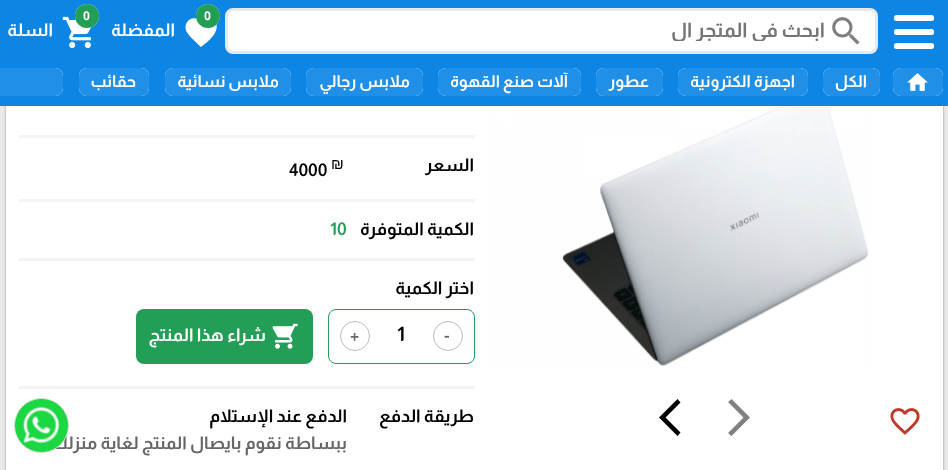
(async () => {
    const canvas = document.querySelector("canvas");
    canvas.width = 948;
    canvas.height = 470;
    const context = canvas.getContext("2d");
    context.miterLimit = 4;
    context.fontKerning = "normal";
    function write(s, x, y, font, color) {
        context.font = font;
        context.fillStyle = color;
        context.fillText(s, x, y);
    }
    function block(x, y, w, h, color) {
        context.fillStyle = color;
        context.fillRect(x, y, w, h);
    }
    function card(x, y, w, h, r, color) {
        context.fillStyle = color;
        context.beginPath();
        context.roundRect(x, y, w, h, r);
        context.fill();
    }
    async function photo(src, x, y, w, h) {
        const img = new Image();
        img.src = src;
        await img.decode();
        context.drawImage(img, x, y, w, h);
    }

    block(0, 0, 948, 470, "rgb(232, 232, 232)");
    context.fillStyle = "rgb(142, 142, 142)";
    context.filter = "blur(1px)";
    context.beginPath();
    context.roundRect(6, 70, 937, 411, 8);
    context.fill();
    context.filter = "none";
    block(0, 0, 948, 106, "rgb(13, 133, 229)");
    card(894, 15, 40, 6, 2.5, "rgb(255, 255, 255)");
    card(894, 29, 40, 6, 2.5, "rgb(255, 255, 255)");
    card(894, 43, 40, 6, 2.5, "rgb(255, 255, 255)");
    context.beginPath();
    context.roundRect(226.5, 9.5, 650, 43, 6.5);
    context.fill();
    context.strokeStyle = "rgb(232, 232, 232)";
    context.lineWidth = 3;
    context.stroke();
    await photo("media/1.png", 832, 17, 28, 28);
    context.save();
    context.beginPath();
    context.rect(238, 20, 587, 21);
    context.clip();
    context.direction = "rtl";
    write("ابحث في المتجر ال", 825, 37, "bold 20px Almarai", "rgb(117, 117, 117)");
    context.restore();
    context.beginPath();
    context.moveTo(201, 47);
    context.bezierCurveTo(197, 43, 189.5, 37, 186.5, 31.5);
    context.bezierCurveTo(182, 21.5, 194, 13.5, 201, 21.5);
    context.bezierCurveTo(208, 14, 220, 21, 216, 30.5);
    context.bezierCurveTo(213.5, 37.5, 206.5, 42.5, 201, 47);
    context.closePath();
    context.fill();
    context.filter = "blur(0.5px)";
    context.beginPath();
    context.roundRect(196, 4, 24, 24, 12);
    context.fill();
    context.filter = "none";
    context.fillStyle = "rgb(35, 158, 87)";
    context.beginPath();
    context.arc(208, 16, 12, 0, Math.PI * 2);
    context.fill();
    write("0", 204, 20, "bold 12px Roboto", "rgb(255, 255, 255)");
    context.direction = "rtl";
    write("المفضلة", 175, 36, "bold 17.5px Almarai", "rgb(255, 255, 255)");
    await photo("media/2.png", 62, 16, 30, 33);
    context.filter = "blur(0.5px)";
    context.beginPath();
    context.roundRect(75, 4, 24, 24, 12);
    context.fill();
    context.filter = "none";
    context.fillStyle = "rgb(35, 158, 87)";
    context.beginPath();
    context.arc(87, 16, 12, 0, Math.PI * 2);
    context.fill();
    context.direction = "ltr";
    write("0", 83, 20, "bold 12px Roboto", "rgb(255, 255, 255)");
    context.direction = "rtl";
    write("السلة", 53, 36, "bold 17.5px Almarai", "rgb(255, 255, 255)");
    context.filter = "blur(0.5px)";
    context.beginPath();
    context.roundRect(893, 68, 50, 28, 8);
    context.fill();
    context.filter = "none";
    card(893, 68, 50, 28, 8, "rgb(32, 143, 231)");
    await photo("media/3.png", 907, 73, 21, 18);
    context.fillStyle = "rgb(255, 255, 255)";
    context.filter = "blur(0.5px)";
    context.beginPath();
    context.roundRect(-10, 68, 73, 28, 8);
    context.fill();
    context.filter = "none";
    context.filter = "blur(0.5px)";
    context.beginPath();
    context.roundRect(823, 68, 57, 28, 8);
    context.fill();
    context.filter = "none";
    card(823, 68, 57, 28, 8, "rgb(32, 143, 231)");
    write("الكل", 867, 87, "bold 16.25px Almarai", "rgb(255, 255, 255)");
    context.filter = "blur(0.5px)";
    context.beginPath();
    context.roundRect(678, 68, 130, 28, 8);
    context.fill();
    context.filter = "none";
    card(678, 68, 130, 28, 8, "rgb(32, 143, 231)");
    write("اجهزة الكترونية", 795, 87, "bold 16.25px Almarai", "rgb(255, 255, 255)");
    context.filter = "blur(0.5px)";
    context.beginPath();
    context.roundRect(596, 68, 67, 28, 8);
    context.fill();
    context.filter = "none";
    card(596, 68, 67, 28, 8, "rgb(32, 143, 231)");
    write("عطور", 649, 87, "bold 16.25px Almarai", "rgb(255, 255, 255)");
    context.filter = "blur(0.5px)";
    context.beginPath();
    context.roundRect(438, 68, 143, 28, 8);
    context.fill();
    context.filter = "none";
    card(438, 68, 143, 28, 8, "rgb(32, 143, 231)");
    write("آلات صنع القهوة", 568, 87, "bold 16.25px Almarai", "rgb(255, 255, 255)");
    context.filter = "blur(0.5px)";
    context.beginPath();
    context.roundRect(306, 68, 117, 28, 8);
    context.fill();
    context.filter = "none";
    card(306, 68, 117, 28, 8, "rgb(32, 143, 231)");
    write("ملابس رجالي", 410, 87, "bold 16.25px Almarai", "rgb(255, 255, 255)");
    context.filter = "blur(0.5px)";
    context.beginPath();
    context.roundRect(165, 68, 126, 28, 8);
    context.fill();
    context.filter = "none";
    card(165, 68, 126, 28, 8, "rgb(32, 143, 231)");
    write("ملابس نسائية", 279, 87, "bold 16.25px Almarai", "rgb(255, 255, 255)");
    context.filter = "blur(0.5px)";
    context.beginPath();
    context.roundRect(79, 68, 70, 28, 8);
    context.fill();
    context.filter = "none";
    card(79, 68, 70, 28, 8, "rgb(32, 143, 231)");
    write("حقائب", 136, 87, "bold 16.25px Almarai", "rgb(255, 255, 255)");
    context.fillStyle = "rgb(32, 143, 231)";
    context.beginPath();
    context.roundRect(0, 68, 63, 28, [0, 8, 8, 0]);
    context.fill();
    block(6, 106, 937, 364, "rgb(255, 255, 255)");
    await photo("media/4.png", 890, 408, 30, 27);
    await photo("media/5.png", 493, 106, 376, 261);
    context.fillStyle = "rgb(128, 128, 128)";
    context.beginPath();
    context.moveTo(728, 433);
    context.lineTo(731.5, 436);
    context.lineTo(750, 417.5);
    context.lineTo(731.5, 399);
    context.lineTo(728, 402);
    context.lineTo(743.5, 417.5);
    context.closePath();
    context.fill();
    context.fillStyle = "rgb(0, 0, 0)";
    context.beginPath();
    context.moveTo(680.5, 402.5);
    context.lineTo(665.5, 417.5);
    context.lineTo(680.5, 432.5);
    context.lineTo(677.5, 436);
    context.lineTo(659, 417.5);
    context.lineTo(677.5, 399);
    context.closePath();
    context.fill();
    block(19, 135, 456, 3, "rgb(244, 244, 244)");
    write("السعر", 474, 171, "bold 17.5px Almarai", "rgb(0, 0, 0)");
    context.direction = "ltr";
    write("₪", 331, 169, "15px Liberation Sans", "rgb(0, 0, 0)");
    write("4000", 289, 176, "bold 17.5px Almarai", "rgb(0, 0, 0)");
    block(19, 199, 456, 3, "rgb(244, 244, 244)");
    context.direction = "rtl";
    write("الكمية المتوفرة", 474, 235, "bold 17.5px Almarai", "rgb(0, 0, 0)");
    context.direction = "ltr";
    write("10", 330, 235, "bold 17.5px Almarai", "rgb(35, 158, 87)");
    block(19, 258, 456, 3, "rgb(244, 244, 244)");
    context.direction = "rtl";
    write("اختر الكمية", 474, 294, "bold 17.5px Almarai", "rgb(0, 0, 0)");
    context.beginPath();
    context.roundRect(328.5, 309.5, 146, 54, 7.5);
    context.strokeStyle = "rgb(35, 158, 87)";
    context.lineWidth = 1;
    context.stroke();
    context.beginPath();
    context.arc(448, 336, 14.5, 0, Math.PI * 2);
    context.strokeStyle = "rgb(187, 187, 187)";
    context.stroke();
    context.direction = "ltr";
    write("-", 444, 341, "bold 17.5px Almarai", "rgb(102, 102, 102)");
    write("1", 397, 341, "bold 20px Almarai", "rgb(0, 0, 0)");
    context.beginPath();
    context.arc(355, 336, 14.5, 0, Math.PI * 2);
    context.stroke();
    write("+", 350, 341, "bold 17.5px Almarai", "rgb(102, 102, 102)");
    card(136, 309, 177, 55, 8, "rgb(35, 158, 87)");
    await photo("media/6.png", 272, 323, 26, 26);
    context.direction = "rtl";
    write("شراء هذا المنتج", 266, 341, "bold 17.5px Almarai", "rgb(255, 255, 255)");
    block(19, 386, 456, 3, "rgb(244, 244, 244)");
    write("طريقة الدفع", 474, 422, "bold 17.5px Almarai", "rgb(0, 0, 0)");
    write("الدفع عند الإستلام", 347, 422, "bold 17.5px Almarai", "rgb(0, 0, 0)");
    write("ببساطة نقوم بايصال المنتج لغاية منزلك", 347, 449, "bold 17.5px Almarai", "rgb(102, 102, 102)");
    context.fillStyle = "rgb(27, 215, 65)";
    context.beginPath();
    context.arc(41.5, 425.5, 27, 0, Math.PI * 2);
    context.fill();
    context.strokeStyle = "rgb(220, 220, 220)";
    context.stroke();
    await photo("media/7.png", 18, 406, 42, 38);
})();
